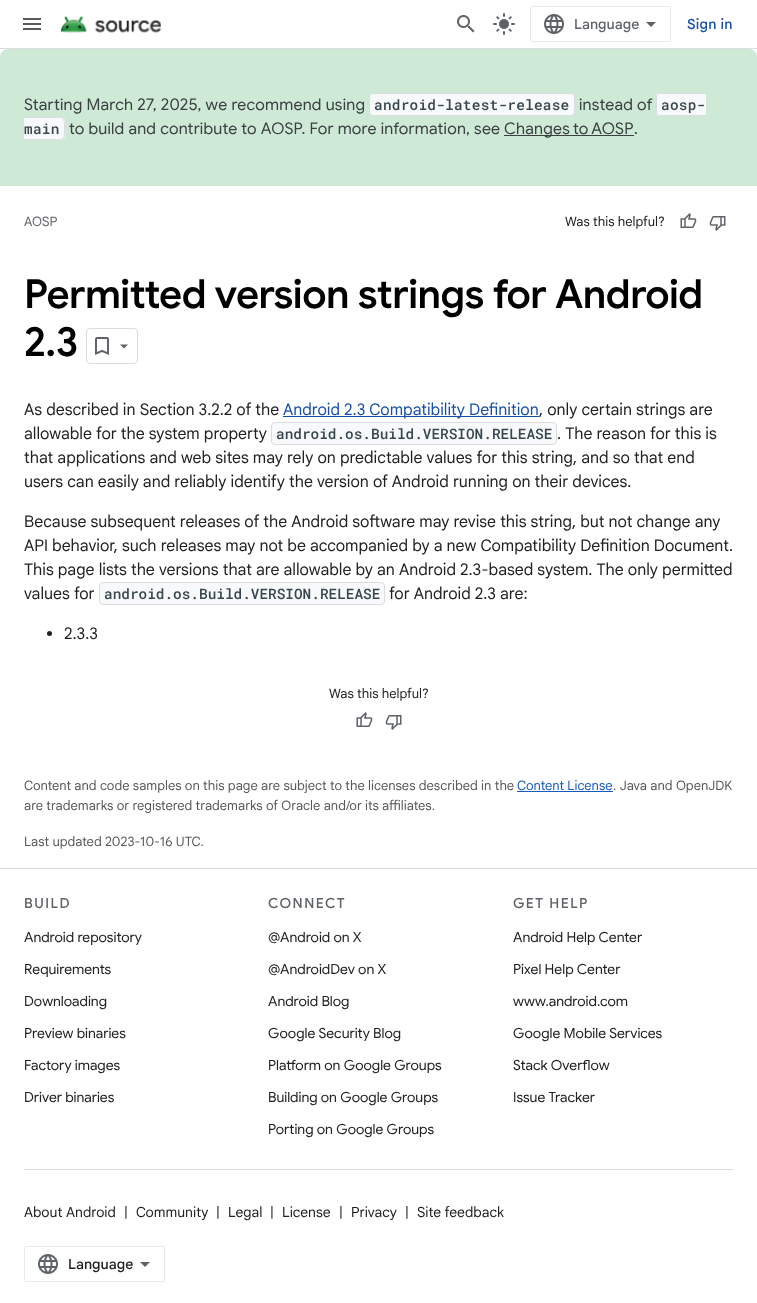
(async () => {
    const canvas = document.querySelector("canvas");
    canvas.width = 757;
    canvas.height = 1303;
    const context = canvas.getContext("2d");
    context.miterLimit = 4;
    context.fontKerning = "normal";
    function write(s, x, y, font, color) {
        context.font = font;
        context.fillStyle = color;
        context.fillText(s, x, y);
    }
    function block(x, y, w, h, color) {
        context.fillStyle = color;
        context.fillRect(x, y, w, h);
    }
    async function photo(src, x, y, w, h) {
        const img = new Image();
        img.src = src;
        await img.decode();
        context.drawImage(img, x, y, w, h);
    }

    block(0, 0, 757, 1303, "rgb(255, 255, 255)");
    block(0, 48, 757, 1, "rgb(218, 220, 224)");
    await photo("media/1.png", 23, 18, 18, 12);
    await photo("media/2.png", 60, 15, 101, 18);
    await photo("media/3.png", 457, 15, 18, 18);
    await photo("media/4.png", 493, 13, 22, 22);
    context.beginPath();
    context.roundRect(530.5, 6.5, 140, 35, 1.5);
    context.strokeStyle = "rgb(232, 234, 237)";
    context.stroke();
    await photo("media/5.png", 544, 14, 20, 20);
    write("Language", 574, 29, "500 14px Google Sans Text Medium", "rgb(95, 99, 104)");
    context.beginPath();
    context.moveTo(651, 27);
    context.lineTo(646, 22);
    context.lineTo(656, 22);
    context.closePath();
    context.fill();
    context.letterSpacing = "0.25px";
    write("Sign in", 687, 29, "500 14px Google Sans Text Medium", "rgb(23, 78, 166)");
    context.fillStyle = "rgb(206, 234, 214)";
    context.beginPath();
    context.roundRect(0, 49, 757, 137, [8, 8, 0, 0]);
    context.fill();
    write("Starting March 27, 2025, we recommend using", 24, 110, "16px Google Sans", "rgb(60, 64, 67)");
    context.fillStyle = "rgb(248, 249, 250)";
    context.beginPath();
    context.roundRect(369.5, 93.5, 205, 22, 3.5);
    context.fill();
    context.strokeStyle = "rgb(218, 220, 224)";
    context.stroke();
    write("android-latest-release", 374, 110, "500 14.4px Roboto Mono", "rgb(55, 71, 79)");
    write("instead of", 579, 110, "16px Google Sans", "rgb(60, 64, 67)");
    context.fillStyle = "rgb(248, 249, 250)";
    context.beginPath();
    context.roundRect(656, 93, 50, 23, [4, 0, 0, 4]);
    context.fill();
    context.fillStyle = "rgb(218, 220, 224)";
    context.beginPath();
    context.moveTo(660, 93);
    context.lineTo(706, 93);
    context.lineTo(706, 116);
    context.lineTo(660, 116);
    context.bezierCurveTo(658, 116, 656, 114, 656, 112);
    context.lineTo(656, 97);
    context.bezierCurveTo(656, 95, 658, 93, 660, 93);
    context.closePath();
    context.moveTo(660, 94);
    context.lineTo(706, 94);
    context.lineTo(706, 115);
    context.lineTo(660, 115);
    context.bezierCurveTo(658, 115, 657, 114, 657, 112);
    context.lineTo(657, 97);
    context.bezierCurveTo(657, 95, 658, 94, 660, 94);
    context.closePath();
    context.fill("evenodd");
    write("aosp-", 661, 110, "500 14.4px Roboto Mono", "rgb(55, 71, 79)");
    context.fillStyle = "rgb(248, 249, 250)";
    context.beginPath();
    context.roundRect(24, 117, 41, 23, [0, 4, 4, 0]);
    context.fill();
    context.fillStyle = "rgb(218, 220, 224)";
    context.beginPath();
    context.moveTo(24, 117);
    context.lineTo(49, 117);
    context.bezierCurveTo(64, 117, 65, 114, 65, 128);
    context.bezierCurveTo(65, 143, 64, 140, 49, 140);
    context.lineTo(24, 140);
    context.closePath();
    context.moveTo(24, 118);
    context.lineTo(49, 118);
    context.bezierCurveTo(64, 118, 64, 115, 64, 128);
    context.bezierCurveTo(64, 142, 64, 139, 49, 139);
    context.lineTo(24, 139);
    context.closePath();
    context.fill("evenodd");
    write("main", 24, 134, "500 14.4px Roboto Mono", "rgb(55, 71, 79)");
    write("to build and contribute to AOSP. For more information, see", 69, 134, "16px Google Sans", "rgb(60, 64, 67)");
    block(504, 135, 130, 1, "rgb(60, 64, 67)");
    context.wordSpacing = "-1px";
    write("Changes to AOSP", 504, 134, "16px Google Sans", "rgb(60, 64, 67)");
    context.wordSpacing = "0px";
    write(".", 634, 134, "16px Google Sans", "rgb(60, 64, 67)");
    context.letterSpacing = "0px";
    write("AOSP", 24, 226, "13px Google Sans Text", "rgb(95, 99, 104)");
    write("Was this helpful?", 565, 226, "13px Google Sans Text", "rgb(32, 33, 36)");
    await photo("media/6.png", 680, 213, 17, 15);
    await photo("media/7.png", 709, 216, 17, 15);
    context.letterSpacing = "-0.5px";
    write("Permitted version strings for Android", 24, 308, "600 40px Google Sans", "rgb(0, 0, 0)");
    write("2.3", 24, 356, "600 40px Google Sans", "rgb(0, 0, 0)");
    context.beginPath();
    context.roundRect(86.5, 328.5, 51, 35, 3.5);
    context.stroke();
    await photo("media/8.png", 95, 337, 14, 18);
    context.fillStyle = "rgb(95, 99, 104)";
    context.beginPath();
    context.moveTo(120, 344.5);
    context.lineTo(128, 344.5);
    context.lineTo(124, 348.5);
    context.closePath();
    context.fill();
    context.letterSpacing = "0px";
    write("As described in Section 3.2.2 of the", 24, 415, "16px Google Sans Text", "rgb(32, 33, 36)");
    block(283, 416, 256, 1, "rgb(23, 78, 166)");
    write("Android 2.3 Compatibility Definition", 283, 415, "16px Google Sans Text", "rgb(23, 78, 166)");
    write(", only certain strings are", 539, 415, "16px Google Sans Text", "rgb(32, 33, 36)");
    write("allowable for the system property", 24, 439, "16px Google Sans Text", "rgb(32, 33, 36)");
    context.fillStyle = "rgb(248, 249, 250)";
    context.beginPath();
    context.roundRect(271.5, 422.5, 285, 22, 3.5);
    context.fill();
    context.stroke();
    write("android.os.Build.VERSION.RELEASE", 276, 439, "500 14.4px Roboto Mono", "rgb(55, 71, 79)");
    write(". The reason for this is", 557, 439, "16px Google Sans Text", "rgb(32, 33, 36)");
    write("that applications and web sites may rely on predictable values for this string, and so that end", 24, 463, "16px Google Sans Text", "rgb(32, 33, 36)");
    write("users can easily and reliably identify the version of Android running on their devices.", 24, 487, "16px Google Sans Text", "rgb(32, 33, 36)");
    write("Because subsequent releases of the Android software may revise this string, but not change any", 24, 527, "16px Google Sans Text", "rgb(32, 33, 36)");
    write("API behavior, such releases may not be accompanied by a new Compatibility Definition Document.", 24, 551, "16px Google Sans Text", "rgb(32, 33, 36)");
    write("This page lists the versions that are allowable by an Android 2.3-based system. The only permitted", 24, 575, "16px Google Sans Text", "rgb(32, 33, 36)");
    write("values for", 24, 599, "16px Google Sans Text", "rgb(32, 33, 36)");
    context.fillStyle = "rgb(248, 249, 250)";
    context.beginPath();
    context.roundRect(99.5, 582.5, 285, 22, 3.5);
    context.fill();
    context.stroke();
    write("android.os.Build.VERSION.RELEASE", 104, 599, "500 14.4px Roboto Mono", "rgb(55, 71, 79)");
    write("for Android 2.3 are:", 389, 599, "16px Google Sans Text", "rgb(32, 33, 36)");
    context.beginPath();
    context.arc(49.5, 633.5, 2.5, 0, Math.PI * 2);
    context.fill();
    write("2.3.3", 64, 639, "16px Google Sans Text", "rgb(32, 33, 36)");
    write("Was this helpful?", 329, 698, "13px Google Sans Text", "rgb(32, 33, 36)");
    await photo("media/6.png", 356, 712, 17, 15);
    await photo("media/7.png", 385, 715, 17, 15);
    write("Content and code samples on this page are subject to the licenses described in the", 24, 790, "13px Google Sans Text", "rgb(89, 89, 89)");
    write("Content License", 517, 790, "13px Google Sans Text", "rgb(24, 90, 188)");
    block(517, 791, 96, 1, "rgb(24, 90, 188)");
    write(". Java and OpenJDK", 613, 790, "13px Google Sans Text", "rgb(89, 89, 89)");
    write("are trademarks or registered trademarks of Oracle and/or its affiliates.", 24, 810, "13px Google Sans Text", "rgb(89, 89, 89)");
    write("Last updated 2023-10-16 UTC.", 24, 846, "13px Google Sans Text", "rgb(89, 89, 89)");
    block(0, 868, 757, 1, "rgb(218, 220, 224)");
    block(24, 1169, 709, 1, "rgb(218, 220, 224)");
    context.letterSpacing = "1.5px";
    write("BUILD", 24, 908, "500 14px Google Sans", "rgb(95, 99, 104)");
    context.letterSpacing = "0px";
    write("Android repository", 24, 942, "14px Google Sans", "rgb(32, 33, 36)");
    write("Requirements", 24, 974, "14px Google Sans", "rgb(32, 33, 36)");
    write("Downloading", 24, 1006, "14px Google Sans", "rgb(32, 33, 36)");
    write("Preview binaries", 24, 1038, "14px Google Sans", "rgb(32, 33, 36)");
    write("Factory images", 24, 1070, "14px Google Sans", "rgb(32, 33, 36)");
    write("Driver binaries", 24, 1102, "14px Google Sans", "rgb(32, 33, 36)");
    context.letterSpacing = "1.5px";
    write("CONNECT", 268, 908, "500 14px Google Sans", "rgb(95, 99, 104)");
    context.letterSpacing = "0px";
    write("@Android on X", 268, 942, "14px Google Sans", "rgb(32, 33, 36)");
    write("@AndroidDev on X", 268, 974, "14px Google Sans", "rgb(32, 33, 36)");
    write("Android Blog", 268, 1006, "14px Google Sans", "rgb(32, 33, 36)");
    write("Google Security Blog", 268, 1038, "14px Google Sans", "rgb(32, 33, 36)");
    write("Platform on Google Groups", 268, 1070, "14px Google Sans", "rgb(32, 33, 36)");
    write("Building on Google Groups", 268, 1102, "14px Google Sans", "rgb(32, 33, 36)");
    write("Porting on Google Groups", 268, 1134, "14px Google Sans", "rgb(32, 33, 36)");
    context.letterSpacing = "1.5px";
    write("GET HELP", 513, 908, "500 14px Google Sans", "rgb(95, 99, 104)");
    context.letterSpacing = "0px";
    write("Android Help Center", 513, 942, "14px Google Sans", "rgb(32, 33, 36)");
    write("Pixel Help Center", 513, 974, "14px Google Sans", "rgb(32, 33, 36)");
    write("www.android.com", 513, 1006, "14px Google Sans", "rgb(32, 33, 36)");
    write("Google Mobile Services", 513, 1038, "14px Google Sans", "rgb(32, 33, 36)");
    write("Stack Overflow", 513, 1070, "14px Google Sans", "rgb(32, 33, 36)");
    write("Issue Tracker", 513, 1102, "14px Google Sans", "rgb(32, 33, 36)");
    write("About Android", 24, 1217, "14px Google Sans Text", "rgb(32, 33, 36)");
    write("|", 124, 1217, "14px Google Sans Text", "rgb(32, 33, 36)");
    write("Community", 136, 1217, "14px Google Sans Text", "rgb(32, 33, 36)");
    write("|", 216, 1217, "14px Google Sans Text", "rgb(32, 33, 36)");
    write("Legal", 228, 1217, "14px Google Sans Text", "rgb(32, 33, 36)");
    write("|", 270, 1217, "14px Google Sans Text", "rgb(32, 33, 36)");
    write("License", 282, 1217, "14px Google Sans Text", "rgb(32, 33, 36)");
    write("|", 339, 1217, "14px Google Sans Text", "rgb(32, 33, 36)");
    write("Privacy", 351, 1217, "14px Google Sans Text", "rgb(32, 33, 36)");
    write("|", 405, 1217, "14px Google Sans Text", "rgb(32, 33, 36)");
    write("Site feedback", 417, 1217, "14px Google Sans Text", "rgb(32, 33, 36)");
    context.beginPath();
    context.roundRect(24.5, 1246.5, 140, 35, 1.5);
    context.strokeStyle = "rgb(232, 234, 237)";
    context.stroke();
    await photo("media/5.png", 38, 1254, 20, 20);
    write("Language", 68, 1269, "500 14px Google Sans Text Medium", "rgb(32, 33, 36)");
    context.fillStyle = "rgb(95, 99, 104)";
    context.beginPath();
    context.moveTo(145, 1267);
    context.lineTo(140, 1262);
    context.lineTo(150, 1262);
    context.closePath();
    context.fill();
})();
